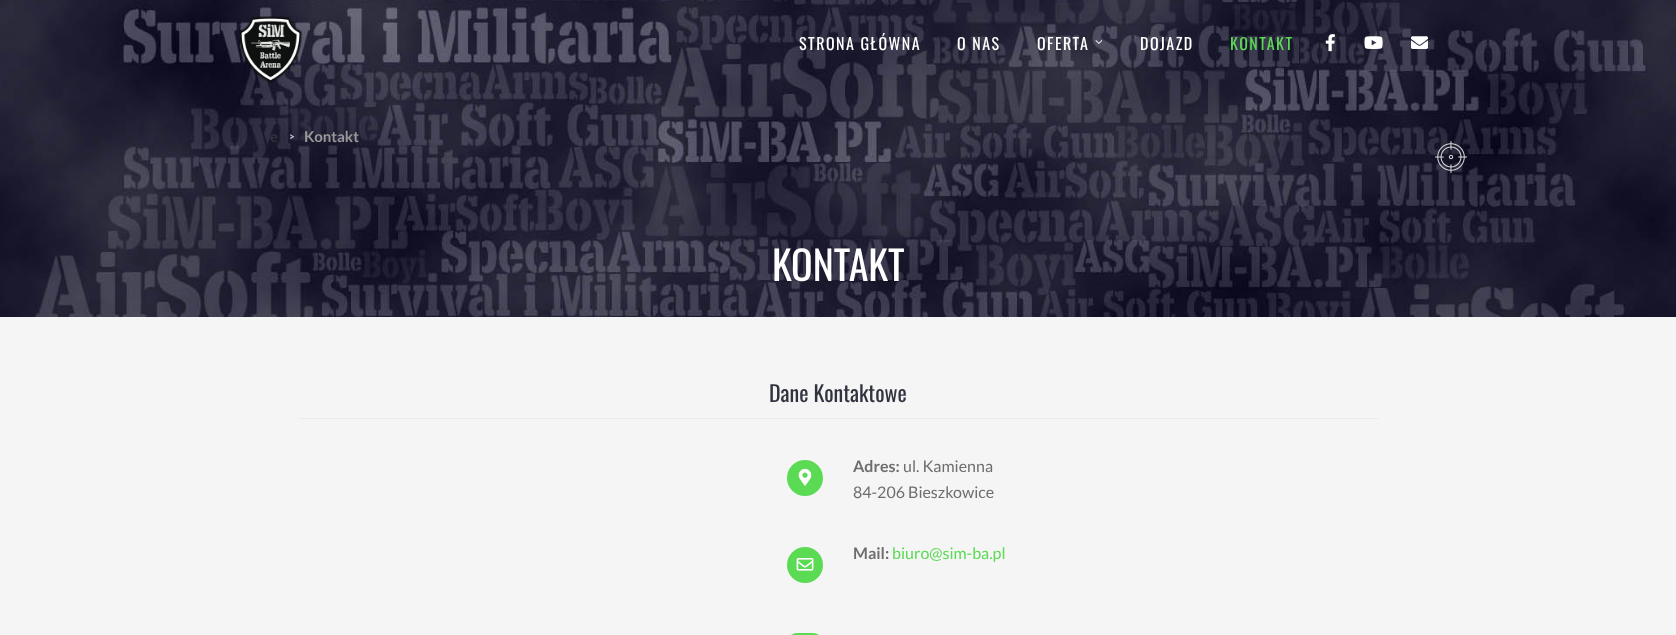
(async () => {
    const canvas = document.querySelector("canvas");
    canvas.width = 1676;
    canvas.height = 635;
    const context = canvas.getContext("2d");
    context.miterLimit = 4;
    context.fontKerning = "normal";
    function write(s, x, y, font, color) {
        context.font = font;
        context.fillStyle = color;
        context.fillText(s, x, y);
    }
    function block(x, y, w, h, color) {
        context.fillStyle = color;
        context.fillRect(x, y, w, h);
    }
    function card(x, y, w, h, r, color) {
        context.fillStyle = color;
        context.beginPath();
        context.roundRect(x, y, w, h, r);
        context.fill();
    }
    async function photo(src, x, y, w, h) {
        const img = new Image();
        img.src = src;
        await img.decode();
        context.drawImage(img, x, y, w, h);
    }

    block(0, 0, 1676, 635, "rgb(245, 245, 245)");
    await photo("media/5.png", 0, 0, 1676, 317);
    context.letterSpacing = "1.5px";
    write("STRONA GŁÓWNA", 799, 50, "16px Oswald", "rgb(255, 255, 255)");
    write("O NAS", 957, 50, "16px Oswald", "rgb(255, 255, 255)");
    write("OFERTA", 1037, 50, "16px Oswald", "rgb(255, 255, 255)");
    await photo("media/1.png", 1095, 40, 8, 4);
    write("DOJAZD", 1140, 50, "16px Oswald", "rgb(255, 255, 255)");
    write("KONTAKT", 1230, 50, "16px Oswald", "rgb(91, 218, 84)");
    await photo("media/2.png", 1325, 34, 10, 18);
    await photo("media/3.png", 1364, 36, 19, 13);
    await photo("media/4.png", 1411, 36, 17, 13);
    await photo("media/6.png", 239, 16, 64, 67);
    context.beginPath();
    context.moveTo(238, 157);
    context.lineTo(1438, 157);
    context.strokeStyle = "rgba(0, 0, 0, 0.04)";
    context.lineWidth = 2;
    context.setLineDash([6, 4.03]);
    context.stroke();
    context.letterSpacing = "0px";
    write("e", 270, 142, "bold 15px Lato", "rgb(49, 52, 63)");
    write(">", 289, 140, "bold 10px Lato", "rgb(204, 204, 204)");
    write("Kontakt", 304, 142, "bold 15px Lato", "rgb(153, 153, 153)");
    await photo("media/7.png", 1435, 141, 32, 32);
    write("KONTAKT", 772, 281, "40px Oswald", "rgb(255, 255, 255)");
    write("Dane Kontaktowe", 769, 402, "22px Oswald", "rgb(49, 52, 63)");
    block(298, 418, 1080, 1, "rgb(235, 235, 235)");
    context.fillStyle = "rgb(91, 218, 84)";
    context.beginPath();
    context.arc(805, 478, 18, 0, Math.PI * 2);
    context.fill();
    await photo("media/8.png", 798, 468, 14, 18);
    write("Adres:", 853, 472, "bold 16px Lato", "rgb(110, 110, 111)");
    write("ul. Kamienna", 903, 472, "16px Lato", "rgb(110, 110, 111)");
    write("84-206 Bieszkowice", 853, 498, "16px Lato", "rgb(110, 110, 111)");
    context.fillStyle = "rgb(91, 218, 84)";
    context.beginPath();
    context.arc(805, 565, 18, 0, Math.PI * 2);
    context.fill();
    await photo("media/9.png", 796, 558, 18, 13);
    write("Mail:", 853, 559, "bold 16px Lato", "rgb(110, 110, 111)");
    write("biuro@sim-ba.pl", 892, 559, "16px Lato", "rgb(91, 218, 84)");
    card(787, 633, 36, 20, 18, "rgb(91, 218, 84)");
})();
